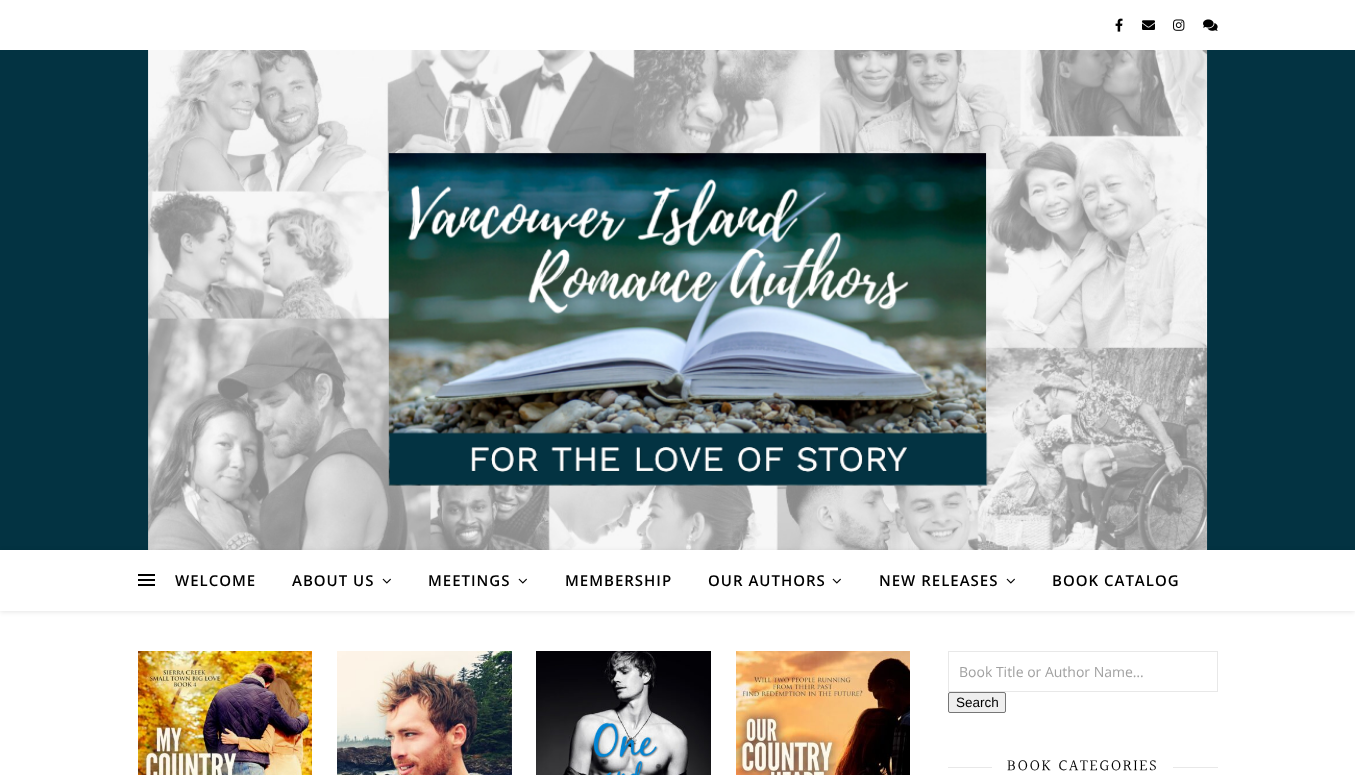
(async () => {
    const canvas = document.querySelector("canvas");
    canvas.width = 1355;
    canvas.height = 775;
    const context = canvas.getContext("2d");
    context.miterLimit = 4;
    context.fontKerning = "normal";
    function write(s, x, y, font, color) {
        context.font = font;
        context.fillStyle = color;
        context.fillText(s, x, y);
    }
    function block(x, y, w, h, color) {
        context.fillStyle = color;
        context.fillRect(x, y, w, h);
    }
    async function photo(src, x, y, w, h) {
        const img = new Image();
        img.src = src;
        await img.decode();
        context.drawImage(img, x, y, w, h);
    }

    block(0, 0, 1355, 775, "rgb(255, 255, 255)");
    await photo("media/1.png", 1115, 18, 8, 14);
    await photo("media/2.png", 1142, 20, 13, 10);
    await photo("media/3.png", 1173, 19, 12, 12);
    await photo("media/4.png", 1203, 19, 15, 12);
    await photo("media/5.png", 0, 50, 1355, 500);
    context.save();
    context.beginPath();
    context.moveTo(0, 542);
    context.lineTo(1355, 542);
    context.lineTo(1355, 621);
    context.lineTo(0, 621);
    context.closePath();
    context.moveTo(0, 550);
    context.lineTo(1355, 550);
    context.lineTo(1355, 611);
    context.lineTo(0, 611);
    context.closePath();
    context.clip("evenodd");
    context.fillStyle = "rgba(0, 0, 0, 0.1)";
    context.filter = "blur(2.5px)";
    context.beginPath();
    context.rect(0, 551, 1355, 61);
    context.fill();
    context.filter = "none";
    context.restore();
    block(138, 574, 17, 2, "rgb(0, 0, 0)");
    block(138, 579, 17, 2, "rgb(0, 0, 0)");
    block(138, 584, 17, 2, "rgb(0, 0, 0)");
    context.letterSpacing = "1px";
    write("WELCOME", 175, 586, "600 15px Open Sans", "rgb(0, 0, 0)");
    write("ABOUT US", 292, 586, "600 15px Open Sans", "rgb(0, 0, 0)");
    await photo("media/6.png", 382, 578, 9, 6);
    write("MEETINGS", 428, 586, "600 15px Open Sans", "rgb(0, 0, 0)");
    await photo("media/6.png", 518, 578, 9, 6);
    write("MEMBERSHIP", 565, 586, "600 15px Open Sans", "rgb(0, 0, 0)");
    write("OUR AUTHORS", 708, 586, "600 15px Open Sans", "rgb(0, 0, 0)");
    await photo("media/6.png", 832, 578, 9, 6);
    write("NEW RELEASES", 879, 586, "600 15px Open Sans", "rgb(0, 0, 0)");
    await photo("media/6.png", 1006, 578, 9, 6);
    write("BOOK CATALOG", 1052, 586, "600 15px Open Sans", "rgb(0, 0, 0)");
    await photo("media/7.png", 138, 651, 174, 124);
    await photo("media/8.png", 337, 651, 175, 124);
    await photo("media/9.png", 536, 651, 175, 124);
    await photo("media/10.png", 736, 651, 174, 124);
    context.strokeStyle = "rgb(232, 232, 232)";
    context.strokeRect(948.5, 651.5, 269, 40);
    context.letterSpacing = "0px";
    write("Book Title or Author Name…", 959, 677, "14px Open Sans", "rgb(161, 161, 161)");
    context.fillStyle = "rgb(239, 239, 239)";
    context.beginPath();
    context.roundRect(948.5, 692.5, 57, 20, 1.5);
    context.fill();
    context.strokeStyle = "rgb(118, 118, 118)";
    context.stroke();
    write("Search", 956, 707, "13.5px Liberation Sans", "rgb(0, 0, 0)");
    block(948, 767, 44, 1, "rgb(232, 232, 232)");
    context.letterSpacing = "1.5px";
    write("BOOK CATEGORIES", 1007, 771, "16px Halant", "rgb(0, 0, 0)");
    block(1173, 767, 45, 1, "rgb(232, 232, 232)");
})();
